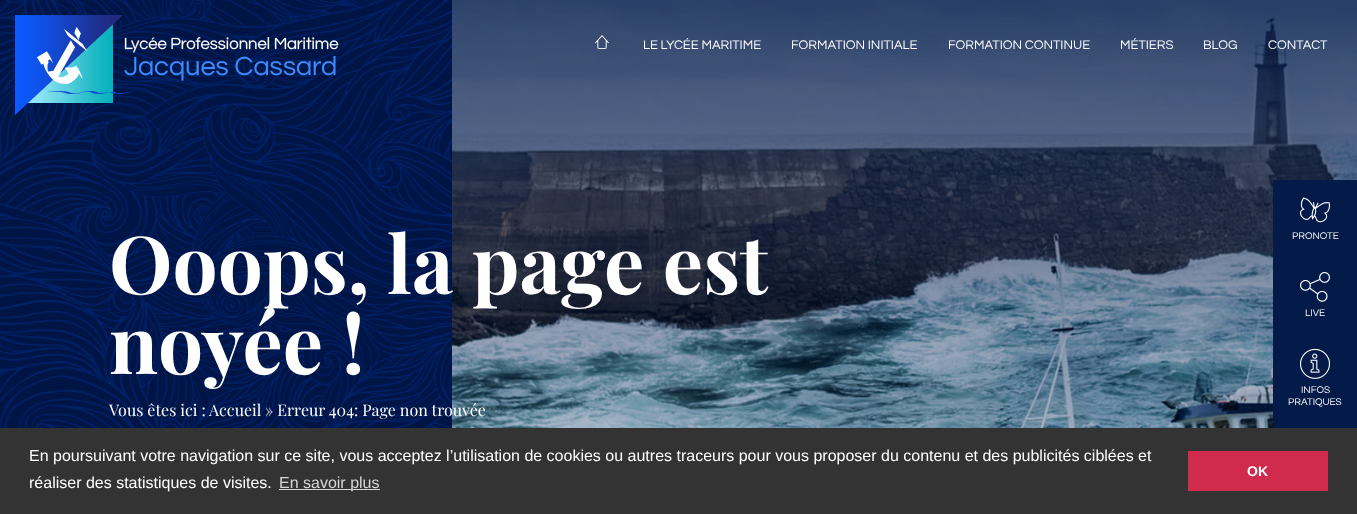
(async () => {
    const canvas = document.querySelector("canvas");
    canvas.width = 1357;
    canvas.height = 514;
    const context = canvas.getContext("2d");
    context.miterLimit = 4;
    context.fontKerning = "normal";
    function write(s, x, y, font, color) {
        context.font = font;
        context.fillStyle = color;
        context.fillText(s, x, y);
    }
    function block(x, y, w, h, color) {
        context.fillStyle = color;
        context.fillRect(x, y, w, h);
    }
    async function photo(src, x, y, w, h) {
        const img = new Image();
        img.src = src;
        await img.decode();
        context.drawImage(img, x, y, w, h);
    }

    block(0, 0, 1357, 514, "rgb(255, 255, 255)");
    await photo("media/3.png", 0, 0, 452, 428);
    await photo("media/1.png", 15, 15, 324, 100);
    await photo("media/4.png", 452, 0, 905, 428);
    await photo("media/2.png", 595, 35, 14, 14);
    write("LE LYCÉE MARITIME", 643, 49, "13px Questrial", "rgb(255, 255, 255)");
    write("FORMATION INITIALE", 791, 49, "13px Questrial", "rgb(255, 255, 255)");
    write("FORMATION CONTINUE", 948, 49, "13px Questrial", "rgb(255, 255, 255)");
    write("MÉTIERS", 1120, 49, "13px Questrial", "rgb(255, 255, 255)");
    write("BLOG", 1203, 49, "13px Questrial", "rgb(255, 255, 255)");
    write("CONTACT", 1268, 49, "13px Questrial", "rgb(255, 255, 255)");
    write("Ooops, la page est", 109, 294, "bold 80px Playfair Display", "rgb(255, 255, 255)");
    write("noyée !", 109, 374, "bold 80px Playfair Display", "rgb(255, 255, 255)");
    write("Vous êtes ici :", 109, 416, "16px Playfair Display", "rgb(255, 255, 255)");
    write("Accueil » Erreur 404: Page non trouvée", 209, 416, "16px Playfair Display", "rgb(255, 255, 255)");
    block(1273, 180, 84, 248, "rgb(4, 27, 73)");
    await photo("media/5.png", 1300, 197, 31, 26);
    write("PRONOTE", 1292, 239, "10px Questrial", "rgb(255, 255, 255)");
    await photo("media/6.png", 1300, 272, 30, 30);
    write("LIVE", 1305, 316, "10px Questrial", "rgb(255, 255, 255)");
    await photo("media/7.png", 1300, 348, 30, 31);
    write("INFOS", 1301, 393, "10px Questrial", "rgb(255, 255, 255)");
    write("PRATIQUES", 1288, 405, "10px Questrial", "rgb(255, 255, 255)");
    block(0, 428, 1357, 86, "rgb(51, 51, 51)");
    write("En poursuivant votre navigation sur ce site, vous acceptez l’utilisation de cookies ou autres traceurs pour vous proposer du contenu et des publicités ciblées et", 29, 461, "16px Liberation Sans", "rgb(255, 255, 255)");
    write("réaliser des statistiques de visites.", 29, 488, "16px Liberation Sans", "rgb(255, 255, 255)");
    block(279, 489, 101, 1, "rgb(214, 214, 214)");
    write("En savoir plus", 279, 488, "16px Liberation Sans", "rgb(214, 214, 214)");
    block(1188, 451, 140, 40, "rgb(208, 42, 76)");
    write("OK", 1247, 476, "bold 14px Liberation Sans", "rgb(255, 255, 255)");
})();
